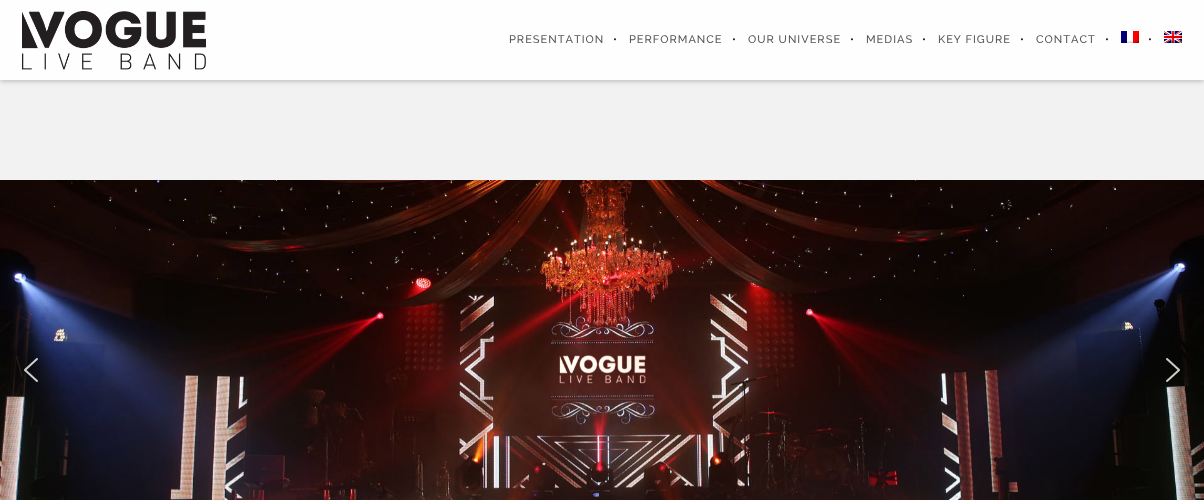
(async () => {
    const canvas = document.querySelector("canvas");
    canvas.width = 1204;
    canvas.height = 500;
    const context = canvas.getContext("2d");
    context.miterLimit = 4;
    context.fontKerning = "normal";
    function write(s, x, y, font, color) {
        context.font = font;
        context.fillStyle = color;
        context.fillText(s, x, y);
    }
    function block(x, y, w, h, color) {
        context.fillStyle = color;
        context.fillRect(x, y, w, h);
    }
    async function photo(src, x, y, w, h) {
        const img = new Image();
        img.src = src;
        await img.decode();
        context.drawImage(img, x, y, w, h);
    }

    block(0, 0, 1204, 500, "rgb(242, 242, 243)");
    context.fillStyle = "rgba(0, 0, 0, 0.25)";
    context.filter = "blur(2.5px)";
    context.beginPath();
    context.rect(0, 1, 1204, 80);
    context.fill();
    context.filter = "none";
    block(0, 0, 1204, 80, "rgb(254, 254, 254)");
    await photo("media/1.png", 22, 11, 184, 59);
    context.letterSpacing = "1px";
    write("PRESENTATION", 509, 43, "500 11px Raleway", "rgb(85, 85, 85)");
    write("•", 613, 43, "500 11px Raleway", "rgb(34, 34, 34)");
    write("PERFORMANCE", 629, 43, "500 11px Raleway", "rgb(85, 85, 85)");
    write("•", 732, 43, "500 11px Raleway", "rgb(34, 34, 34)");
    write("OUR UNIVERSE", 748, 43, "500 11px Raleway", "rgb(85, 85, 85)");
    write("•", 850, 43, "500 11px Raleway", "rgb(34, 34, 34)");
    write("MEDIAS", 866, 43, "500 11px Raleway", "rgb(85, 85, 85)");
    write("•", 922, 43, "500 11px Raleway", "rgb(34, 34, 34)");
    write("KEY FIGURE", 938, 43, "500 11px Raleway", "rgb(85, 85, 85)");
    write("•", 1020, 43, "500 11px Raleway", "rgb(34, 34, 34)");
    write("CONTACT", 1036, 43, "500 11px Raleway", "rgb(85, 85, 85)");
    write("•", 1105, 43, "500 11px Raleway", "rgb(34, 34, 34)");
    await photo("media/2.png", 1121, 31, 18, 12);
    write("•", 1148, 43, "500 11px Raleway", "rgb(34, 34, 34)");
    await photo("media/3.png", 1164, 31, 18, 12);
    await photo("media/4.png", 0, 180, 1204, 320);
    await photo("media/5.png", 24, 358, 14, 24);
    await photo("media/6.png", 1166, 358, 14, 24);
})();
